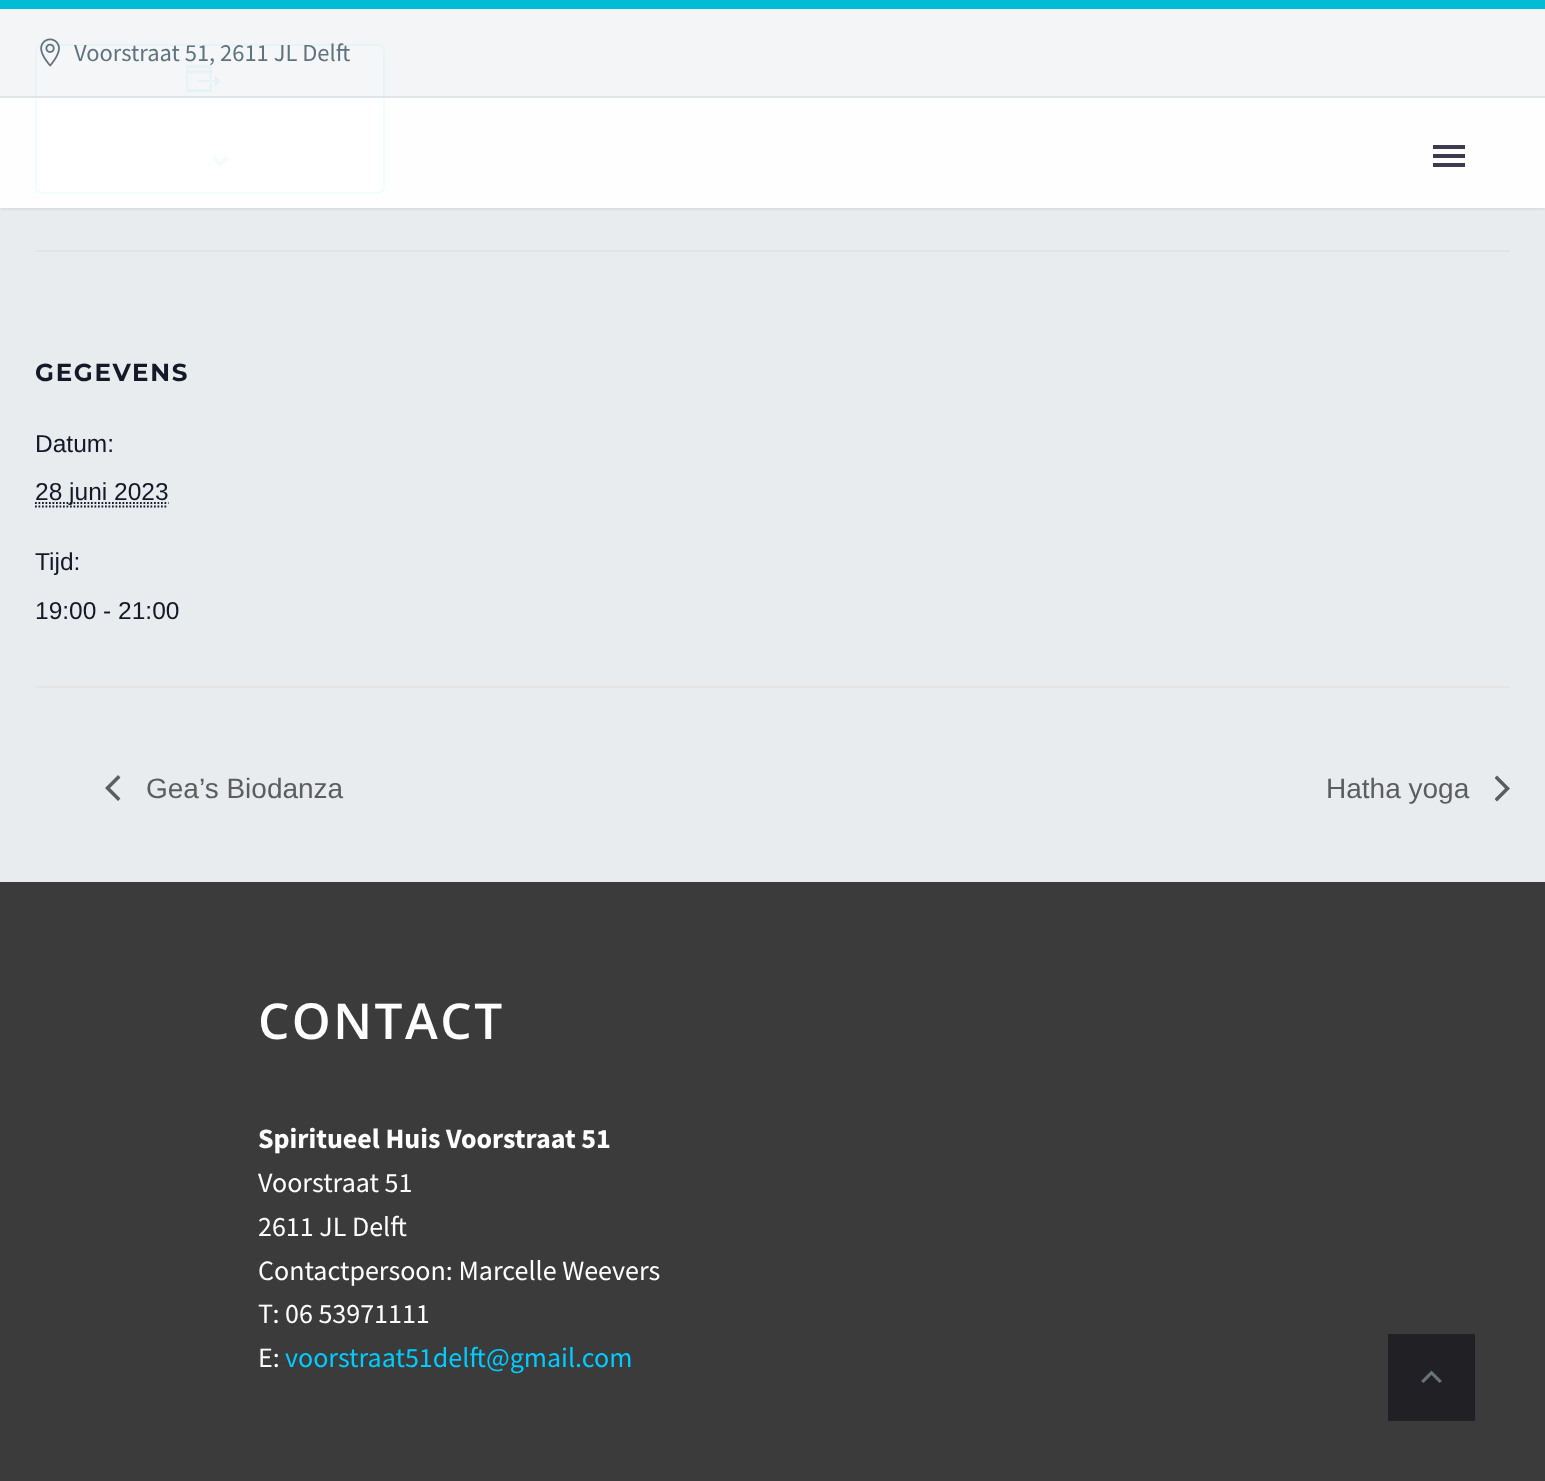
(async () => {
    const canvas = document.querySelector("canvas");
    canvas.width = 1545;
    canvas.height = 1481;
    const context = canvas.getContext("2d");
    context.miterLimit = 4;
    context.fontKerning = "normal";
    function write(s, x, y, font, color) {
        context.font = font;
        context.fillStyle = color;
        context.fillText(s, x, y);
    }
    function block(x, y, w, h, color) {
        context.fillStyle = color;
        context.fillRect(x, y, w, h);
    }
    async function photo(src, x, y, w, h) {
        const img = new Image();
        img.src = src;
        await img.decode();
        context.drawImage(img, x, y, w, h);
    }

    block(0, 0, 1545, 1481, "rgb(232, 236, 239)");
    context.fillStyle = "rgb(255, 255, 255)";
    context.beginPath();
    context.roundRect(36, 45, 348, 148, 6);
    context.fill();
    context.strokeStyle = "rgb(0, 188, 212)";
    context.lineWidth = 2;
    context.stroke();
    await photo("media/2.png", 186, 65, 35, 28);
    await photo("media/3.png", 212, 156, 17, 10);
    context.save();
    context.beginPath();
    context.rect(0, 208, 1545, 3);
    context.clip();
    context.fillStyle = "rgba(56, 69, 84, 0.2)";
    context.filter = "blur(2px)";
    context.beginPath();
    context.rect(0, 0, 1545, 208);
    context.fill();
    context.filter = "none";
    context.restore();
    block(0, 9, 1545, 87, "rgba(244, 246, 247, 0.95)");
    block(0, 0, 1545, 9, "rgb(0, 188, 212)");
    block(0, 96, 1545, 2, "rgb(223, 229, 232)");
    await photo("media/1.png", 40, 38, 20, 29);
    write("Voorstraat 51, 2611 JL Delft", 74, 61, "24.5px Source Sans Pro", "rgb(95, 114, 127)");
    block(0, 98, 1545, 110, "rgba(255, 255, 255, 0.95)");
    block(1433, 145, 32, 4, "rgb(60, 57, 80)");
    block(1433, 154, 32, 4, "rgb(60, 57, 80)");
    block(1433, 163, 32, 4, "rgb(60, 57, 80)");
    block(35, 250, 1475, 2, "rgb(228, 228, 228)");
    context.letterSpacing = "1.75px";
    write("GEGEVENS", 35, 381, "bold 24.5px Montserrat", "rgb(20, 24, 39)");
    context.letterSpacing = "0px";
    write("Datum:", 35, 452, "24.5px Liberation Sans", "rgb(20, 24, 39)");
    context.beginPath();
    context.moveTo(35, 506.5);
    context.lineTo(168, 506.5);
    context.strokeStyle = "rgb(20, 24, 39)";
    context.lineWidth = 1.8;
    context.setLineDash([1.75, 1.75]);
    context.stroke();
    context.beginPath();
    context.moveTo(35, 503);
    context.lineTo(168.5, 503);
    context.stroke();
    write("28 juni 2023", 35, 500, "24.5px Liberation Sans", "rgb(20, 24, 39)");
    write("Tijd:", 35, 570, "24.5px Liberation Sans", "rgb(20, 24, 39)");
    write("19:00 - 21:00", 35, 619, "24.5px Liberation Sans", "rgb(20, 24, 39)");
    block(35, 686, 1475, 2, "rgb(228, 228, 228)");
    context.fillStyle = "rgb(93, 93, 93)";
    context.beginPath();
    context.moveTo(120.5, 798.5);
    context.lineTo(118, 801);
    context.lineTo(105, 788);
    context.lineTo(118, 775);
    context.lineTo(120.5, 777.5);
    context.lineTo(110, 788);
    context.closePath();
    context.fill();
    write("Gea’s Biodanza", 146, 798, "28px Liberation Sans", "rgb(93, 93, 93)");
    write("Hatha yoga", 1326, 798, "28px Liberation Sans", "rgb(93, 93, 93)");
    context.save();
    context.beginPath();
    context.rect(1495, 775, 15, 27);
    context.clip();
    context.beginPath();
    context.moveTo(1494.5, 778);
    context.lineTo(1497, 775.5);
    context.lineTo(1510, 788.5);
    context.lineTo(1497, 801.5);
    context.lineTo(1494.5, 799);
    context.lineTo(1505, 788.5);
    context.closePath();
    context.fill();
    context.restore();
    block(0, 882, 1545, 599, "rgb(59, 59, 59)");
    context.letterSpacing = "2.5px";
    write("CONTACT", 258, 1039, "600 49.5px Open Sans", "rgb(255, 255, 255)");
    context.letterSpacing = "0px";
    write("Spiritueel Huis Voorstraat 51", 258, 1148, "bold 28px Source Sans Pro", "rgb(255, 255, 255)");
    write("Voorstraat 51", 258, 1192, "28px Source Sans Pro", "rgb(255, 255, 255)");
    write("2611 JL Delft", 258, 1236, "28px Source Sans Pro", "rgb(255, 255, 255)");
    write("Contactpersoon: Marcelle Weevers", 258, 1280, "28px Source Sans Pro", "rgb(255, 255, 255)");
    write("T: 06 53971111", 258, 1323, "28px Source Sans Pro", "rgb(255, 255, 255)");
    write("E:", 258, 1367, "28px Source Sans Pro", "rgb(255, 255, 255)");
    write("voorstraat51delft@gmail.com", 285, 1367, "28px Source Sans Pro", "rgb(0, 204, 255)");
    block(1388, 1334, 87, 87, "rgb(33, 33, 37)");
    context.fillStyle = "rgb(106, 114, 120)";
    context.beginPath();
    context.moveTo(1423.5, 1383);
    context.lineTo(1431.5, 1375);
    context.lineTo(1439.5, 1383);
    context.lineTo(1442, 1381);
    context.lineTo(1431.5, 1370.5);
    context.lineTo(1421, 1381);
    context.closePath();
    context.fill();
})();
